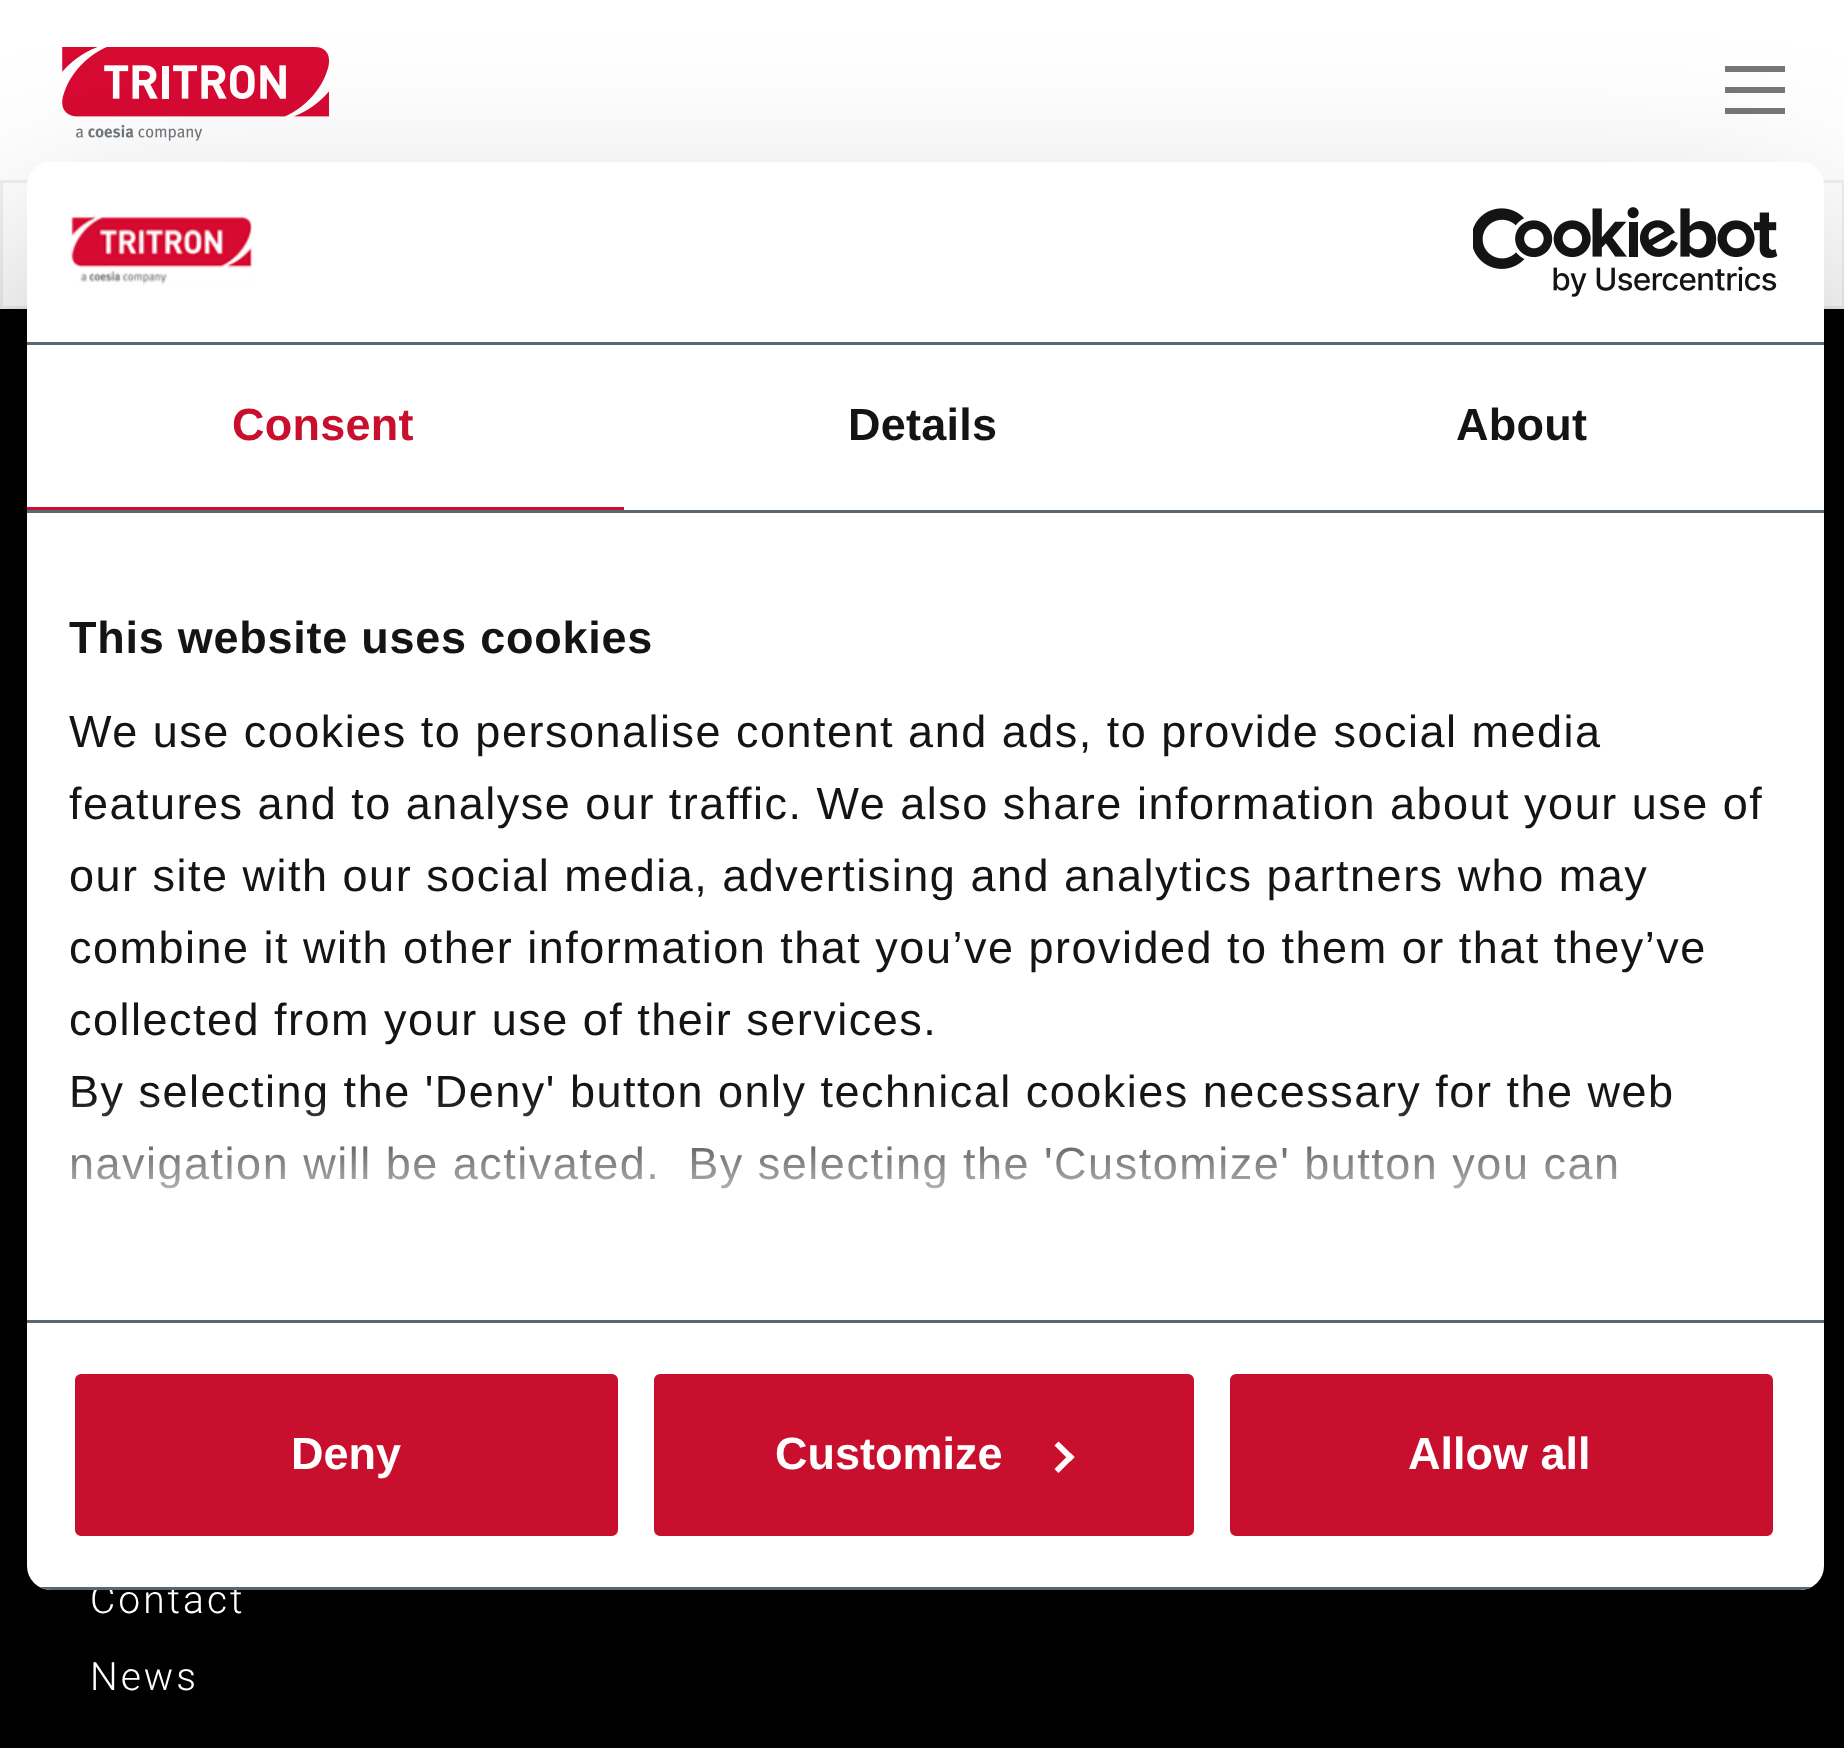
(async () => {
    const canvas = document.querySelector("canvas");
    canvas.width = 1844;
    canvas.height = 1748;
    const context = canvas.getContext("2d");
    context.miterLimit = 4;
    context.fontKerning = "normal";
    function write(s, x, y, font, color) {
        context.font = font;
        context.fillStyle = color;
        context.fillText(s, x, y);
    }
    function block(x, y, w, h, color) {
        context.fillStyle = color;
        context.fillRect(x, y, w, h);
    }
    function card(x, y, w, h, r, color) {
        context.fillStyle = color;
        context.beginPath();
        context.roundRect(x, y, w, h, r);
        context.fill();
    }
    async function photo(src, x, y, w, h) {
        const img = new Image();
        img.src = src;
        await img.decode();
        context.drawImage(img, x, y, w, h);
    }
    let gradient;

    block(0, 0, 1844, 1748, "rgb(255, 255, 255)");
    context.strokeStyle = "rgb(240, 240, 240)";
    context.lineWidth = 3;
    context.strokeRect(1.5, -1.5, 921, 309);
    context.strokeRect(925.5, -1.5, 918, 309);
    block(0, 0, 1844, 180, "rgb(255, 255, 255)");
    block(0, 180, 1844, 3, "rgb(240, 240, 240)");
    await photo("media/3.png", 62, 47, 268, 94);
    block(1725, 87, 60, 6, "rgb(119, 119, 119)");
    block(1725, 66, 60, 6, "rgb(119, 119, 119)");
    block(1725, 108, 60, 6, "rgb(119, 119, 119)");
    block(0, 309, 1844, 1439, "rgb(0, 0, 0)");
    context.save();
    context.beginPath();
    context.moveTo(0, 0);
    context.lineTo(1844, 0);
    context.lineTo(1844, 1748);
    context.lineTo(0, 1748);
    context.closePath();
    context.moveTo(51, 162);
    context.lineTo(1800, 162);
    context.bezierCurveTo(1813.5, 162, 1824, 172.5, 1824, 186);
    context.lineTo(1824, 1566);
    context.bezierCurveTo(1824, 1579.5, 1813.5, 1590, 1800, 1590);
    context.lineTo(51, 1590);
    context.bezierCurveTo(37.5, 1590, 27, 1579.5, 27, 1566);
    context.lineTo(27, 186);
    context.bezierCurveTo(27, 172.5, 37.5, 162, 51, 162);
    context.closePath();
    context.clip("evenodd");
    context.fillStyle = "rgba(0, 0, 0, 0.3)";
    context.filter = "blur(102px)";
    context.beginPath();
    context.roundRect(27, 258, 1797, 1428, 24);
    context.fill();
    context.filter = "none";
    context.restore();
    card(27, 162, 1797, 1428, 24, "rgb(255, 255, 255)");
    block(27, 342, 1797, 3, "rgb(91, 103, 112)");
    await photo("media/1.png", 71, 216, 182, 69);
    await photo("media/2.png", 1473, 207, 305, 90);
    block(27, 510, 1797, 3, "rgb(91, 103, 112)");
    block(27, 507, 597, 3, "rgb(200, 16, 46)");
    context.letterSpacing = "0.25px";
    write("Consent", 232, 440, "bold 45px Liberation Sans", "rgb(200, 16, 46)");
    write("Details", 848, 440, "bold 45px Liberation Sans", "rgb(20, 20, 20)");
    write("About", 1456, 440, "bold 45px Liberation Sans", "rgb(20, 20, 20)");
    block(27, 1320, 1797, 3, "rgb(91, 103, 112)");
    context.letterSpacing = "0.75px";
    write("This website uses cookies", 69, 653, "bold 45px Liberation Sans", "rgb(20, 20, 20)");
    context.letterSpacing = "1.5px";
    write("We use cookies to personalise content and ads, to provide social media", 69, 747, "45px Liberation Sans", "rgb(20, 20, 20)");
    write("features and to analyse our traffic. We also share information about your use of", 69, 819, "45px Liberation Sans", "rgb(20, 20, 20)");
    write("our site with our social media, advertising and analytics partners who may", 69, 891, "45px Liberation Sans", "rgb(20, 20, 20)");
    write("combine it with other information that you’ve provided to them or that they’ve", 69, 963, "45px Liberation Sans", "rgb(20, 20, 20)");
    write("collected from your use of their services.", 69, 1035, "45px Liberation Sans", "rgb(20, 20, 20)");
    write("By selecting the 'Deny' button only technical cookies necessary for the web", 69, 1107, "45px Liberation Sans", "rgb(20, 20, 20)");
    write("navigation will be activated.  By selecting the 'Customize' button you can", 69, 1179, "45px Liberation Sans", "rgb(20, 20, 20)");
    gradient = context.createLinearGradient(905, 1320, 905, 1095);
    gradient.addColorStop(0, "rgb(255, 255, 255)");
    gradient.addColorStop(0.5, "rgba(255, 255, 255, 0.8)");
    gradient.addColorStop(1, "rgba(255, 255, 255, 0)");
    context.fillStyle = gradient;
    context.fillRect(72, 1098, 1599, 91);
    context.letterSpacing = "3px";
    write("Contact", 90, 1613, "300 39px Roboto", "rgb(255, 255, 255)");
    context.save();
    context.beginPath();
    context.roundRect(27, 162, 1797, 1428, 24);
    context.clip();
    block(39, 1587, 1773, 3, "rgb(91, 103, 112)");
    context.restore();
    context.fillStyle = "rgb(200, 16, 46)";
    context.beginPath();
    context.roundRect(72, 1371, 549, 168, 9);
    context.fill();
    context.strokeStyle = "rgb(255, 255, 255)";
    context.lineWidth = 6;
    context.stroke();
    context.letterSpacing = "0px";
    write("Deny", 291, 1469, "bold 45px Liberation Sans", "rgb(255, 255, 255)");
    context.fillStyle = "rgb(200, 16, 46)";
    context.beginPath();
    context.roundRect(651, 1371, 546, 168, 9);
    context.fill();
    context.stroke();
    write("Customize", 775, 1469, "bold 45px Liberation Sans", "rgb(255, 255, 255)");
    context.beginPath();
    context.moveTo(1058.5, 1441.5);
    context.lineTo(1074.5, 1457);
    context.lineTo(1070.5, 1461.5);
    context.lineTo(1054.5, 1445.5);
    context.closePath();
    context.fill();
    context.beginPath();
    context.moveTo(1070.5, 1453);
    context.lineTo(1074.5, 1457);
    context.lineTo(1058.5, 1473);
    context.lineTo(1054.5, 1469);
    context.closePath();
    context.fill();
    context.fillStyle = "rgb(200, 16, 46)";
    context.beginPath();
    context.roundRect(1227, 1371, 549, 168, 9);
    context.fill();
    context.stroke();
    write("Allow all", 1408, 1469, "bold 45px Liberation Sans", "rgb(255, 255, 255)");
    context.letterSpacing = "3px";
    write("News", 90, 1690, "300 39px Roboto", "rgb(255, 255, 255)");
})();
